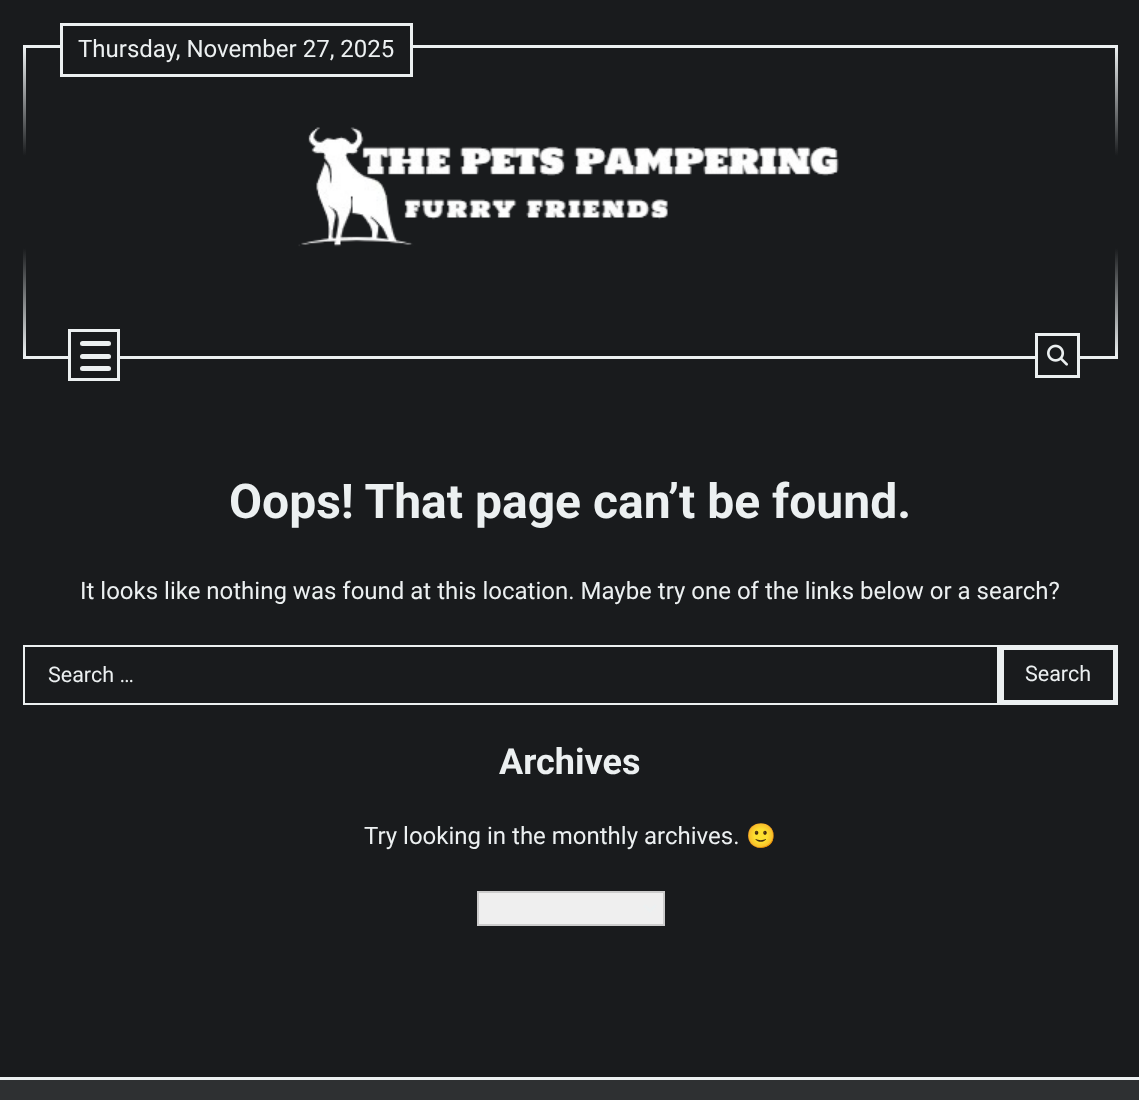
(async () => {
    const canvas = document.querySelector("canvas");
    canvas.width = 1139;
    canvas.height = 1100;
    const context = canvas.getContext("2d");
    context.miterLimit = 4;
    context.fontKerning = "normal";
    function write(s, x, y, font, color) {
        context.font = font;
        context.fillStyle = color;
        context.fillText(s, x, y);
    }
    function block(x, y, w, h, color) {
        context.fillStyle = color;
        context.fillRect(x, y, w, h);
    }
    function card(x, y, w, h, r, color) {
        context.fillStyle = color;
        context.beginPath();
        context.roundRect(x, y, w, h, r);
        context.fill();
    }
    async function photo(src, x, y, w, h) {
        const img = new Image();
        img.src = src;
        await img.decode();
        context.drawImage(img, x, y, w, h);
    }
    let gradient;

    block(0, 0, 1139, 1100, "rgb(25, 27, 29)");
    block(23, 45, 1095, 3, "rgb(236, 240, 241)");
    block(23, 356, 1095, 3, "rgb(236, 240, 241)");
    gradient = context.createLinearGradient(24, 48, 24, 356);
    gradient.addColorStop(0, "rgb(236, 240, 241)");
    gradient.addColorStop(0.35, "rgb(25, 27, 29)");
    gradient.addColorStop(0.65, "rgb(25, 27, 29)");
    gradient.addColorStop(1, "rgb(236, 240, 241)");
    context.fillStyle = gradient;
    context.fillRect(23, 48, 3, 308);
    block(63, 45, 347, 3, "rgb(25, 27, 29)");
    context.strokeStyle = "rgb(236, 240, 241)";
    context.lineWidth = 3;
    context.strokeRect(61.5, 24.5, 350, 51);
    write("Thursday, November 27, 2025", 78, 57, "24px Roboto", "rgb(236, 240, 241)");
    await photo("media/1.png", 298, 127, 541, 120);
    gradient = context.createLinearGradient(1116, 48, 1116, 356);
    gradient.addColorStop(0, "rgb(236, 240, 241)");
    gradient.addColorStop(0.35, "rgb(25, 27, 29)");
    gradient.addColorStop(0.65, "rgb(25, 27, 29)");
    gradient.addColorStop(1, "rgb(236, 240, 241)");
    context.fillStyle = gradient;
    context.fillRect(1115, 48, 3, 308);
    block(71, 356, 46, 3, "rgb(25, 27, 29)");
    context.strokeRect(69.5, 330.5, 49, 49);
    card(80, 341, 31, 5, 2.5, "rgb(236, 240, 241)");
    card(80, 354, 31, 5, 2.5, "rgb(236, 240, 241)");
    card(80, 366, 31, 5, 2.5, "rgb(236, 240, 241)");
    block(1038, 356, 39, 3, "rgb(25, 27, 29)");
    context.strokeRect(1036.5, 334.5, 42, 42);
    await photo("media/2.png", 1047, 344, 21, 22);
    write("Oops! That page can’t be found.", 229, 518, "bold 48px Roboto", "rgb(236, 240, 241)");
    write("It looks like nothing was found at this location. Maybe try one of the links below or a search?", 80, 599, "24px Roboto", "rgb(236, 240, 241)");
    context.lineWidth = 2;
    context.strokeRect(24, 646, 974, 58);
    write("Search …", 48, 682, "21.5px Roboto", "rgb(236, 240, 241)");
    context.lineWidth = 5;
    context.strokeRect(1001.5, 647.5, 114, 55);
    write("Search", 1025, 681, "21.5px Roboto", "rgb(236, 240, 241)");
    write("Archives", 499, 774, "bold 36px Roboto", "rgb(236, 240, 241)");
    write("Try looking in the monthly archives.", 364, 844, "24px Roboto", "rgb(236, 240, 241)");
    write("🙂", 746, 844, "24px Noto Color Emoji", "rgb(236, 240, 241)");
    context.fillStyle = "rgb(239, 239, 239)";
    context.beginPath();
    context.rect(478, 892, 186, 33);
    context.fill();
    context.strokeStyle = "rgb(204, 204, 204)";
    context.lineWidth = 2;
    context.stroke();
    context.beginPath();
    context.moveTo(644, 905);
    context.lineTo(650, 911);
    context.lineTo(656, 905);
    context.strokeStyle = "rgb(236, 240, 241)";
    context.lineWidth = 3;
    context.stroke();
    block(0, 1077, 1139, 3, "rgb(236, 240, 241)");
    block(0, 1080, 1139, 20, "rgb(46, 48, 50)");
})();
